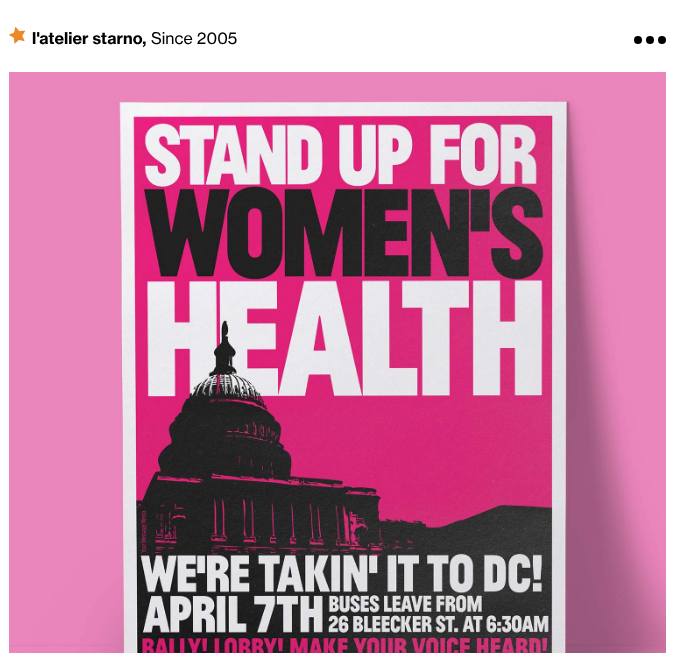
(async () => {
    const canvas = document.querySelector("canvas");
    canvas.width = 675;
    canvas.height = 653;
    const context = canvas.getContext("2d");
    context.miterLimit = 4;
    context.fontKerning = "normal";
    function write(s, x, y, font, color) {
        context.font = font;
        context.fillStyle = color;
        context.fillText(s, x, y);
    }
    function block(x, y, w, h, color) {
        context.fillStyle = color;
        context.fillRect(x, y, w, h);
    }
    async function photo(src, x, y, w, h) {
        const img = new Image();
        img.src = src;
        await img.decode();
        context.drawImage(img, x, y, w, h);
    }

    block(0, 0, 675, 653, "rgb(255, 255, 255)");
    await photo("media/1.png", 9, 27, 16, 17);
    write("l'atelier starno,", 32, 44, "bold 16px 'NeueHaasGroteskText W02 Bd'", "rgb(0, 0, 0)");
    write("Since 2005", 151, 44, "16px 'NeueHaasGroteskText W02'", "rgb(0, 0, 0)");
    context.beginPath();
    context.arc(638, 40, 4, 0, Math.PI * 2);
    context.fill();
    context.beginPath();
    context.arc(650, 40, 4, 0, Math.PI * 2);
    context.fill();
    context.beginPath();
    context.arc(662, 40, 4, 0, Math.PI * 2);
    context.fill();
    await photo("media/2.png", 9, 72, 657, 581);
})();
